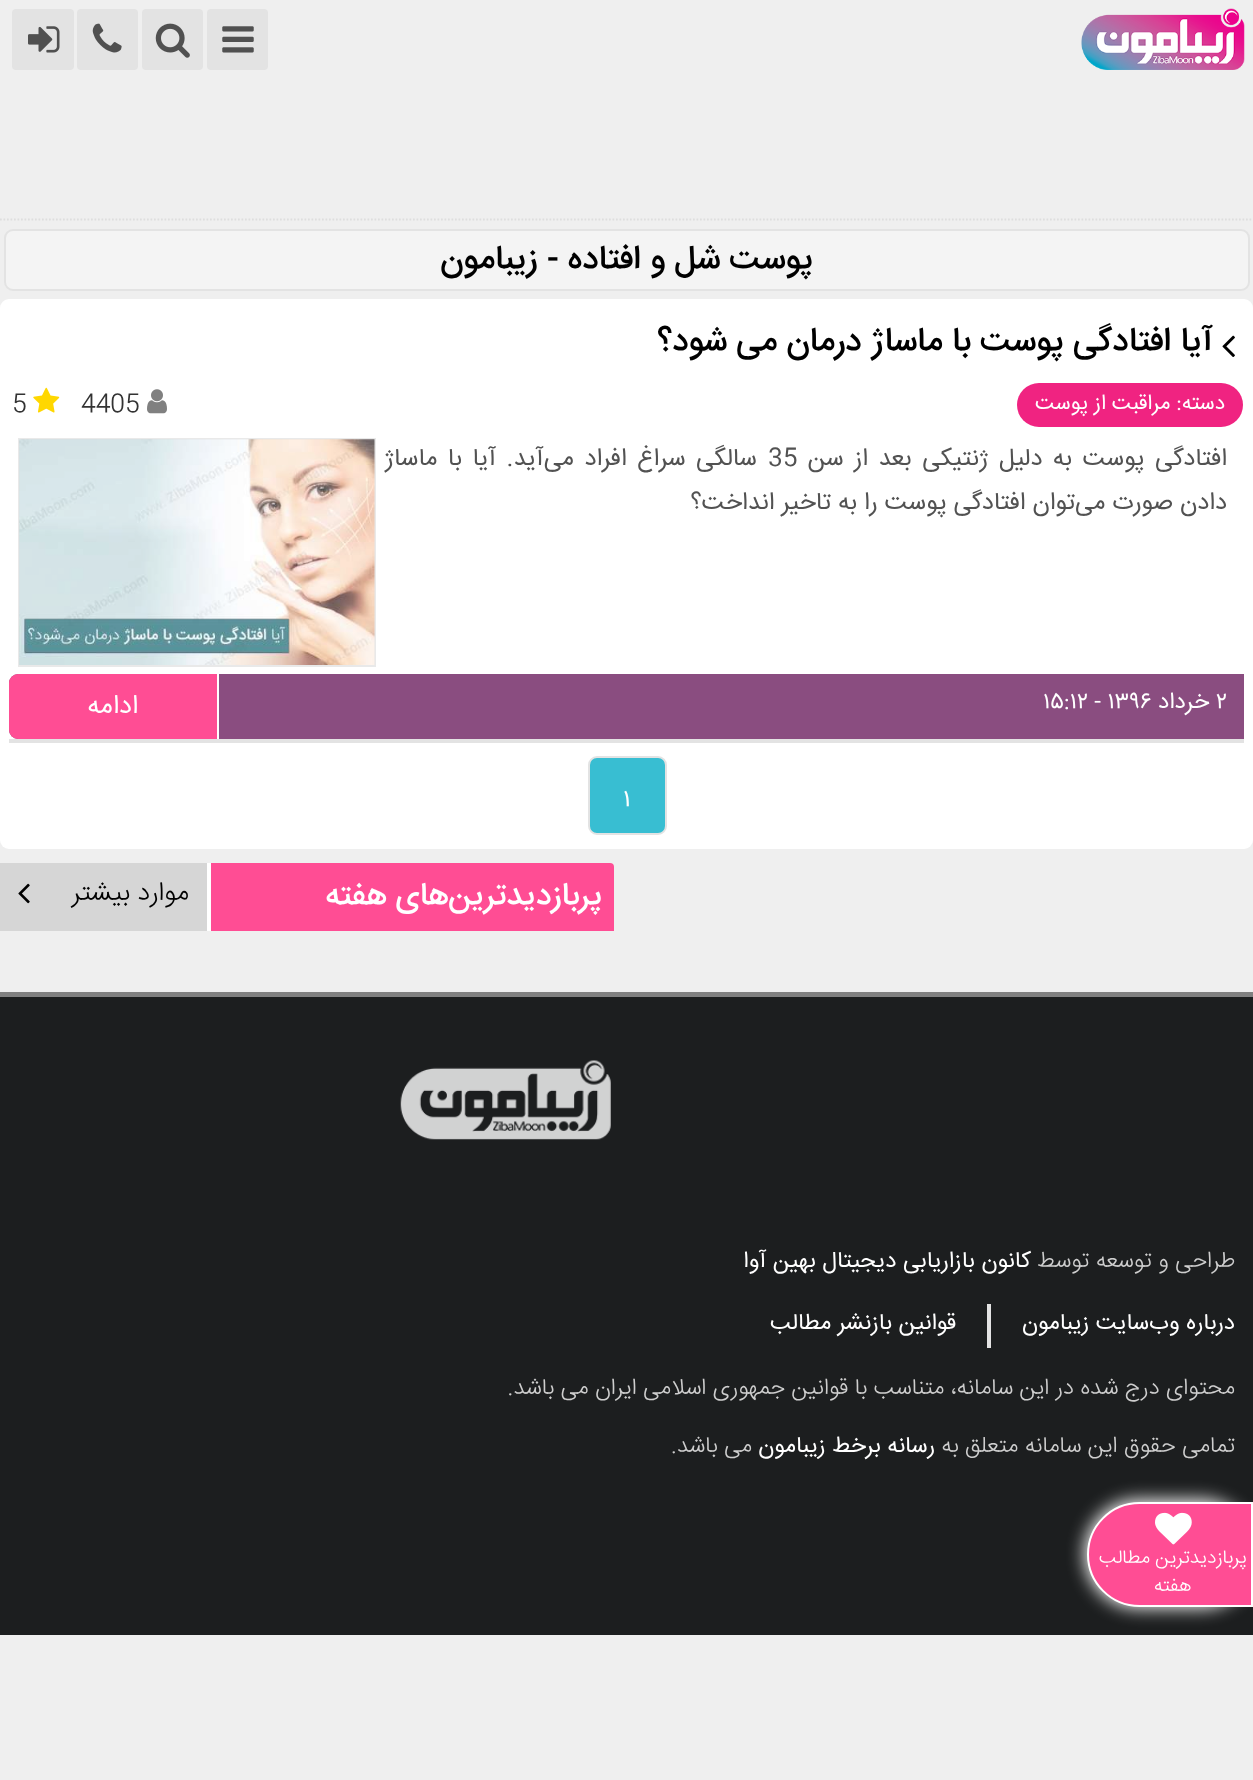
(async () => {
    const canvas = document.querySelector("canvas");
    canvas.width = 1253;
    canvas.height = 1780;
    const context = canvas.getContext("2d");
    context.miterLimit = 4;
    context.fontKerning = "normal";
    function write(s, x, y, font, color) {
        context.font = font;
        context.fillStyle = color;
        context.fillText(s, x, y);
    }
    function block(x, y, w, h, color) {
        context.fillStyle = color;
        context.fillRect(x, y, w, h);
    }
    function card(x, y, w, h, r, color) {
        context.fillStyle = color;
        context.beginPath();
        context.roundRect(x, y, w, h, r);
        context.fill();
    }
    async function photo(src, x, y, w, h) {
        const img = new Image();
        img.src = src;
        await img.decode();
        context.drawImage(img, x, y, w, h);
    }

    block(0, 0, 1253, 1780, "rgb(239, 239, 239)");
    context.beginPath();
    context.moveTo(0, 219.5);
    context.lineTo(1253, 219.5);
    context.strokeStyle = "rgb(222, 222, 222)";
    context.lineWidth = 1.8;
    context.setLineDash([1.75, 1.75]);
    context.stroke();
    await photo("media/1.png", 1081, 8, 164, 62);
    card(207, 9, 61, 61, 4, "rgb(227, 227, 227)");
    await photo("media/2.png", 222, 26, 32, 27);
    card(142, 9, 61, 61, 4, "rgb(227, 227, 227)");
    await photo("media/3.png", 155, 23, 35, 35);
    card(77, 9, 61, 61, 4, "rgb(227, 227, 227)");
    await photo("media/4.png", 92, 23, 30, 30);
    card(12, 9, 62, 61, 4, "rgb(227, 227, 227)");
    await photo("media/5.png", 28, 26, 32, 27);
    context.fillStyle = "rgb(244, 244, 244)";
    context.beginPath();
    context.roundRect(5, 230, 1244, 60, 8);
    context.fill();
    context.strokeStyle = "rgb(227, 227, 227)";
    context.lineWidth = 2;
    context.setLineDash([]);
    context.stroke();
    context.direction = "rtl";
    write("پوست شل و افتاده - زیبامون", 813, 268, "500 33.25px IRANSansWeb", "rgb(0, 0, 0)");
    card(0, 299, 1253, 550, 9, "rgb(255, 255, 255)");
    block(9, 739, 1235, 4, "rgb(227, 227, 227)");
    await photo("media/6.png", 1222, 335, 13, 22);
    write("آیا افتادگی پوست با ماساژ درمان می شود؟", 1213, 350, "500 33.25px IRANSansWeb", "rgb(0, 0, 0)");
    card(1017, 383, 226, 44, 22, "rgb(240, 35, 129)");
    write("دسته: مراقبت از پوست", 1225, 409, "21px IRANSansWeb", "rgb(255, 255, 255)");
    await photo("media/7.png", 147, 389, 20, 25);
    context.direction = "ltr";
    write("4405", 81, 411, "300 24.5px IRANSansWeb", "rgb(51, 51, 51)");
    await photo("media/8.png", 33, 387, 27, 26);
    write("5", 12, 411, "300 24.5px IRANSansWeb", "rgb(51, 51, 51)");
    context.wordSpacing = "3.5px";
    context.direction = "rtl";
    write("افتادگی پوست به دلیل ژنتیکی بعد از سن", 1227, 465, "24.5px IRANSansWeb", "rgb(82, 82, 82)");
    context.wordSpacing = "0px";
    context.direction = "ltr";
    write("35", 768, 465, "24.5px IRANSansWeb", "rgb(82, 82, 82)");
    context.wordSpacing = "3.5px";
    context.direction = "rtl";
    write("سالگی سراغ افراد می‌آید. آیا با ماساژ", 757, 465, "24.5px IRANSansWeb", "rgb(82, 82, 82)");
    context.wordSpacing = "0px";
    write("دادن صورت می‌توان افتادگی پوست را به تاخیر انداخت؟", 1227, 509, "24.5px IRANSansWeb", "rgb(82, 82, 82)");
    context.strokeStyle = "rgb(233, 233, 233)";
    context.strokeRect(19, 439, 356, 227);
    await photo("media/9.png", 19, 439, 356, 226);
    context.fillStyle = "rgb(138, 77, 128)";
    context.beginPath();
    context.roundRect(9, 674, 1235, 65, [9, 0, 0, 9]);
    context.fill();
    context.direction = "ltr";
    write("۲", 1216, 708, "22.75px IRANSansWeb", "rgb(255, 255, 255)");
    context.direction = "rtl";
    write("خرداد", 1209, 708, "22.75px IRANSansWeb", "rgb(255, 255, 255)");
    context.direction = "ltr";
    write("۱۵:۱۲ - ۱۳۹۶", 1043, 708, "22.75px IRANSansWeb", "rgb(255, 255, 255)");
    context.fillStyle = "rgb(255, 77, 148)";
    context.beginPath();
    context.roundRect(9, 674, 210, 65, [9, 0, 0, 9]);
    context.fill();
    block(217, 674, 2, 65, "rgb(255, 255, 255)");
    context.direction = "rtl";
    write("ادامه", 138, 713, "26.25px IRANSansWeb", "rgb(255, 255, 255)");
    context.fillStyle = "rgb(56, 190, 210)";
    context.beginPath();
    context.roundRect(589, 757, 77, 77, 8);
    context.fill();
    context.strokeStyle = "rgb(227, 227, 227)";
    context.stroke();
    context.direction = "ltr";
    write("۱", 623, 806, "24.5px IRANSansWeb", "rgb(255, 255, 255)");
    context.fillStyle = "rgb(255, 77, 148)";
    context.beginPath();
    context.roundRect(0, 863, 614, 68, [4, 4, 0, 0]);
    context.fill();
    context.direction = "rtl";
    write("پربازدیدترین‌های هفته", 602, 904, "500 31.5px IRANSansWeb", "rgb(255, 255, 255)");
    block(0, 863, 207, 68, "rgb(214, 214, 214)");
    block(207, 863, 4, 68, "rgb(255, 255, 255)");
    write("موارد بیشتر", 189, 900, "300 26.25px IRANSansWeb", "rgb(0, 0, 0)");
    await photo("media/10.png", 18, 883, 12, 21);
    block(0, 997, 1253, 638, "rgb(28, 30, 31)");
    block(0, 992, 1253, 5, "rgb(128, 128, 128)");
    await photo("media/11.png", 400, 1060, 211, 80);
    write("طراحی و توسعه توسط", 1235, 1267, "300 22.75px IRANSansWeb", "rgb(206, 206, 206)");
    write("کانون بازاریابی دیجیتال بهین آوا", 1031, 1267, "22.75px IRANSansWeb", "rgb(255, 255, 255)");
    write("درباره وب‌سایت زیبامون", 1235, 1329, "22.75px IRANSansWeb", "rgb(255, 255, 255)");
    block(987, 1304, 4, 44, "rgb(227, 227, 227)");
    write("قوانین بازنشر مطالب", 956, 1329, "22.75px IRANSansWeb", "rgb(255, 255, 255)");
    write("محتوای درج شده در این سامانه، متناسب با قوانین جمهوری اسلامی ایران می باشد.", 1235, 1394, "300 22.75px IRANSansWeb", "rgb(206, 206, 206)");
    write("تمامی حقوق این سامانه متعلق به", 1235, 1452, "300 22.75px IRANSansWeb", "rgb(206, 206, 206)");
    write("رسانه برخط زیبامون", 935, 1452, "22.75px IRANSansWeb", "rgb(255, 255, 255)");
    write("می باشد.", 752, 1452, "300 22.75px IRANSansWeb", "rgb(206, 206, 206)");
    context.fillStyle = "rgb(255, 255, 255)";
    context.filter = "blur(9px)";
    context.beginPath();
    context.roundRect(1085, 1500, 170, 108, 54);
    context.fill();
    context.filter = "none";
    context.fillStyle = "rgb(255, 77, 148)";
    context.beginPath();
    context.roundRect(1088, 1503, 164, 103, [51.5, 0, 0, 51.5]);
    context.fill();
    context.strokeStyle = "rgb(255, 255, 255)";
    context.stroke();
    await photo("media/12.png", 1155, 1512, 37, 33);
    write("پربازدیدترین مطالب", 1247, 1563, "300 19.25px IRANSansWeb", "rgb(255, 255, 255)");
    write("هفته", 1191, 1591, "300 19.25px IRANSansWeb", "rgb(255, 255, 255)");
})();
